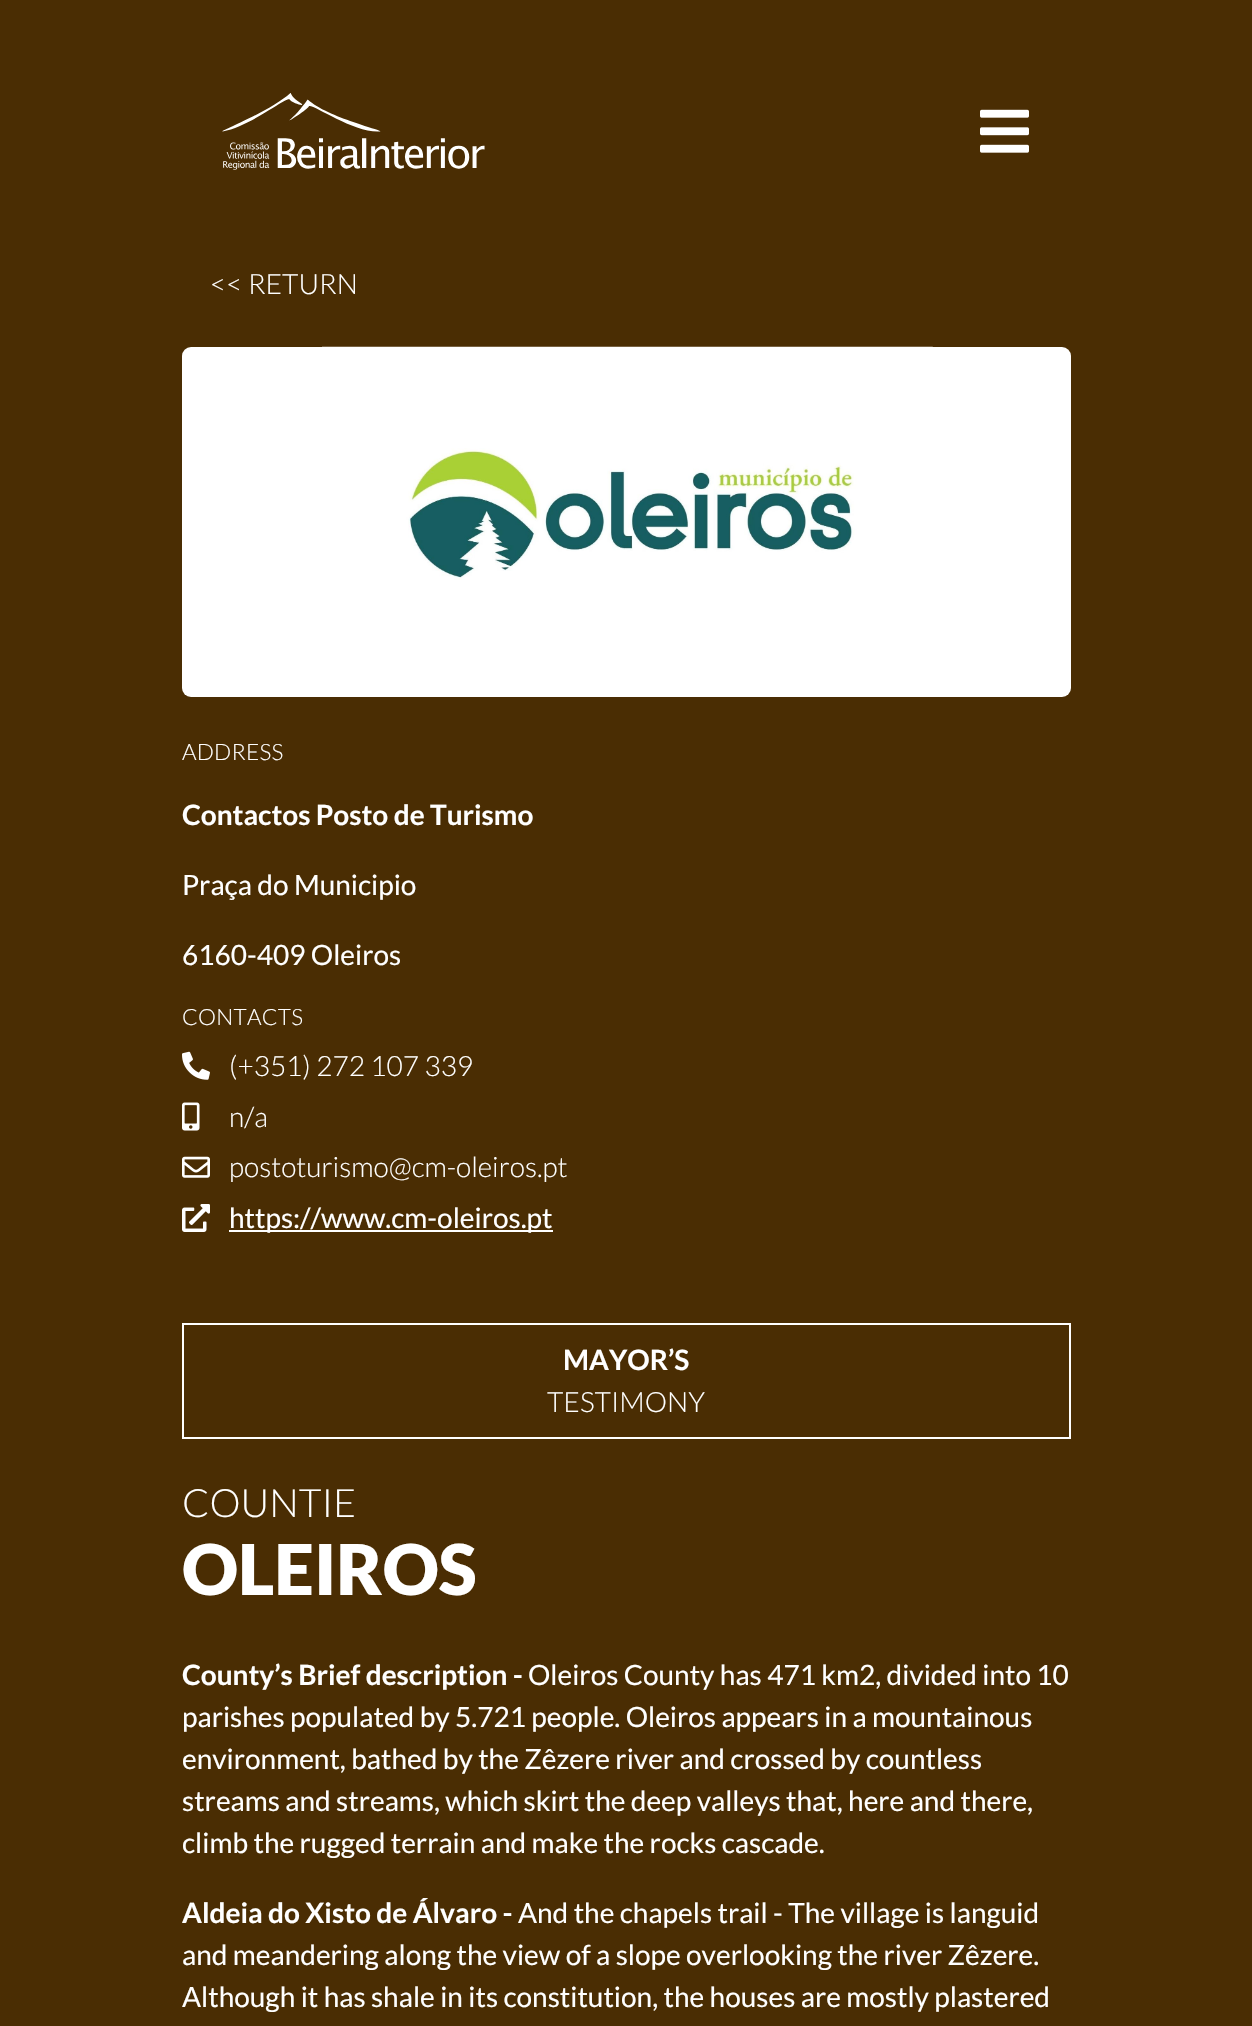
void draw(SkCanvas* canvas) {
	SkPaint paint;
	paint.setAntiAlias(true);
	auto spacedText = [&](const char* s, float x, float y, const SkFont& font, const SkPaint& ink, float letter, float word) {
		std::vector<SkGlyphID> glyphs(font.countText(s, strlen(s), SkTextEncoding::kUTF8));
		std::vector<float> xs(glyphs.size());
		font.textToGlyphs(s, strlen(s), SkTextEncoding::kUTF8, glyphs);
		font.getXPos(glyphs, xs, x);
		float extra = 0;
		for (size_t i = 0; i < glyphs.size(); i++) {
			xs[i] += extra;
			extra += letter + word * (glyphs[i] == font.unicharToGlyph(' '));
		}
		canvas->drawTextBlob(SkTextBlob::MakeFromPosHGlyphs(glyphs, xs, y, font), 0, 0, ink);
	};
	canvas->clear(0xff4a2d03);
	canvas->drawImageRect(SkImages::DeferredFromEncodedData(SkData::MakeFromFileName("img1.png")), SkRect::MakeXYWH(222, 93, 263, 77), SkSamplingOptions());
	canvas->drawImageRect(SkImages::DeferredFromEncodedData(SkData::MakeFromFileName("img2.png")), SkRect::MakeXYWH(980, 109, 49, 44), SkSamplingOptions());
	SkFont f1(fontMgr->matchFamilyStyle("Lato", SkFontStyle(300, SkFontStyle::kNormal_Width, SkFontStyle::kUpright_Slant)), 28);
	f1.setSubpixel(true);
	paint.setColor(0xffffffff);
	canvas->drawString("<< RETURN", 210, 294, f1, paint);
	canvas->drawRoundRect(SkRect::MakeXYWH(182, 347, 889, 350), 9, 9, paint);
	canvas->drawImageRect(SkImages::DeferredFromEncodedData(SkData::MakeFromFileName("img3.png")), SkRect::MakeXYWH(322, 346, 611, 234), SkSamplingOptions());
	SkFont f2(fontMgr->matchFamilyStyle("Lato", SkFontStyle(300, SkFontStyle::kNormal_Width, SkFontStyle::kUpright_Slant)), 22.5);
	f2.setSubpixel(true);
	spacedText("ADDRESS", 182, 760, f2, paint, 0.25, 0);
	SkFont f3(fontMgr->matchFamilyStyle("Lato", SkFontStyle::Bold()), 28);
	f3.setSubpixel(true);
	canvas->drawString("Contactos Posto de Turismo", 182, 825, f3, paint);
	SkFont f4(fontMgr->matchFamilyStyle("Lato", SkFontStyle::Normal()), 28);
	f4.setSubpixel(true);
	canvas->drawString("Praça do Municipio", 182, 895, f4, paint);
	canvas->drawString("6160-409 Oleiros", 182, 965, f4, paint);
	spacedText("CONTACTS", 182, 1025, f2, paint, 0.25, 0);
	canvas->drawImageRect(SkImages::DeferredFromEncodedData(SkData::MakeFromFileName("img4.png")), SkRect::MakeXYWH(182, 1051, 28, 29), SkSamplingOptions());
	canvas->drawString("(+351) 272 107 339", 229, 1076, f1, paint);
	canvas->drawImageRect(SkImages::DeferredFromEncodedData(SkData::MakeFromFileName("img5.png")), SkRect::MakeXYWH(182, 1102, 18, 29), SkSamplingOptions());
	canvas->drawString("n/a", 229, 1127, f1, paint);
	canvas->drawImageRect(SkImages::DeferredFromEncodedData(SkData::MakeFromFileName("img6.png")), SkRect::MakeXYWH(182, 1156, 28, 22), SkSamplingOptions());
	canvas->drawString("postoturismo@cm-oleiros.pt", 229, 1177, f1, paint);
	canvas->drawImageRect(SkImages::DeferredFromEncodedData(SkData::MakeFromFileName("img7.png")), SkRect::MakeXYWH(182, 1204, 28, 28), SkSamplingOptions());
	canvas->drawRect(SkRect::MakeXYWH(229, 1230, 324, 2), paint);
	canvas->drawString("https://www.cm-oleiros.pt", 229, 1228, f4, paint);
	paint.setStroke(true);
	paint.setStrokeWidth(2);
	canvas->drawRect(SkRect::MakeXYWH(183, 1324, 887, 114), paint);
	paint.setStroke(false);
	canvas->drawString("MAYOR’S", 563, 1370, f3, paint);
	canvas->drawString("TESTIMONY", 547, 1412, f1, paint);
	SkFont f5(fontMgr->matchFamilyStyle("Lato", SkFontStyle(300, SkFontStyle::kNormal_Width, SkFontStyle::kUpright_Slant)), 39);
	f5.setSubpixel(true);
	canvas->drawString("COUNTIE", 182, 1517, f5, paint);
	SkFont f6(fontMgr->matchFamilyStyle("Lato", SkFontStyle(900, SkFontStyle::kNormal_Width, SkFontStyle::kUpright_Slant)), 70);
	f6.setSubpixel(true);
	canvas->drawString("OLEIROS", 182, 1595, f6, paint);
	canvas->drawString("County’s Brief description -", 182, 1685, f3, paint);
	canvas->drawString("Oleiros County has 471 km2, divided into 10", 528, 1685, f4, paint);
	canvas->drawString("parishes populated by 5.721 people. Oleiros appears in a mountainous", 182, 1727, f4, paint);
	canvas->drawString("environment, bathed by the Zêzere river and crossed by countless", 182, 1769, f4, paint);
	canvas->drawString("streams and streams, which skirt the deep valleys that, here and there,", 182, 1811, f4, paint);
	canvas->drawString("climb the rugged terrain and make the rocks cascade.", 182, 1853, f4, paint);
	canvas->drawString("Aldeia do Xisto de Álvaro -", 182, 1923, f3, paint);
	canvas->drawString("And the chapels trail - The village is languid", 518, 1923, f4, paint);
	canvas->drawString("and meandering along the view of a slope overlooking the river Zêzere.", 182, 1965, f4, paint);
	canvas->drawString("Although it has shale in its constitution, the houses are mostly plastered", 182, 2007, f4, paint);
}
